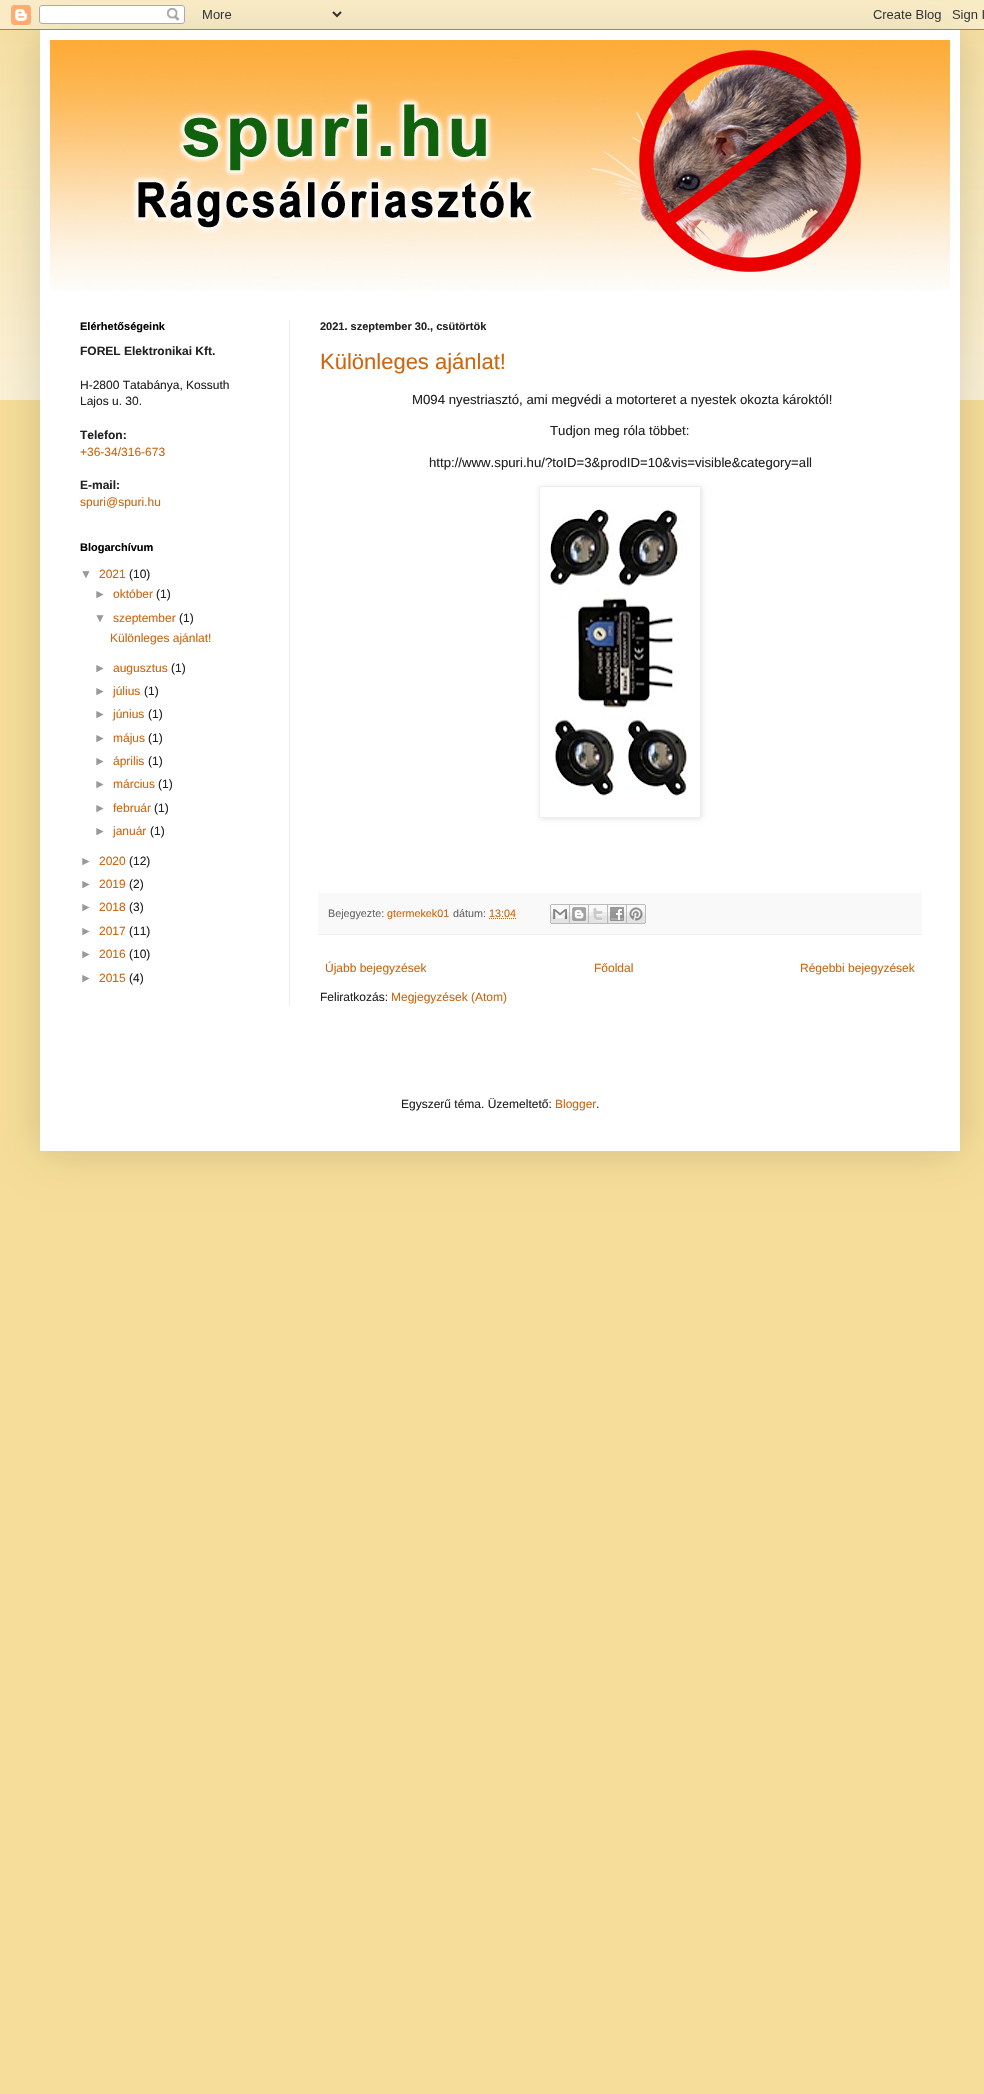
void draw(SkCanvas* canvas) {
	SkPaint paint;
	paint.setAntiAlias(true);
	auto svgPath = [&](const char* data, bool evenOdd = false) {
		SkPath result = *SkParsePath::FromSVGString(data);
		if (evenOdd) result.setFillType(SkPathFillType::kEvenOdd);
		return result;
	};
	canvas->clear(0xfff6dd99);
	canvas->drawImageRect(SkImages::DeferredFromEncodedData(SkData::MakeFromFileName("img1.png")), SkRect::MakeXYWH(0, 0, 984, 400), SkSamplingOptions());
	paint.setColor(0x26000000);
	paint.setMaskFilter(SkMaskFilter::MakeBlur(kNormal_SkBlurStyle, 20));
	canvas->drawRect(SkRect::MakeXYWH(40, 30, 920, 1121), paint);
	paint.setMaskFilter(nullptr);
	canvas->drawImageRect(SkImages::DeferredFromEncodedData(SkData::MakeFromFileName("img2.png")), SkRect::MakeXYWH(0, 0, 984, 30), SkSamplingOptions());
	paint.setColor(0xffffffff);
	canvas->drawRect(SkRect::MakeXYWH(40, 30, 920, 1121), paint);
	canvas->drawImageRect(SkImages::DeferredFromEncodedData(SkData::MakeFromFileName("img3.png")), SkRect::MakeXYWH(50, 40, 900, 250), SkSamplingOptions());
	paint.setColor(0xffeeeeee);
	canvas->drawRect(SkRect::MakeXYWH(289, 320, 1, 686), paint);
	SkFont f1(fontMgr->matchFamilyStyle("Liberation Sans", SkFontStyle::Bold()), 11);
	f1.setSubpixel(true);
	paint.setColor(0xff000000);
	canvas->drawString("Elérhetőségeink", 80, 330, f1, paint);
	SkFont f2(fontMgr->matchFamilyStyle("Liberation Sans", SkFontStyle::Bold()), 12);
	f2.setSubpixel(true);
	paint.setColor(0xff222222);
	canvas->drawString("FOREL Elektronikai Kft.", 80, 355, f2, paint);
	SkFont f3(fontMgr->matchFamilyStyle("Liberation Sans", SkFontStyle::Normal()), 12);
	f3.setSubpixel(true);
	canvas->drawString("H-2800 Tatabánya, Kossuth", 80, 389, f3, paint);
	canvas->drawString("Lajos u. 30.", 80, 405, f3, paint);
	canvas->drawString("Telefon:", 80, 439, f2, paint);
	paint.setColor(0xffcc6611);
	canvas->drawString("+36-34/316-673", 80, 456, f3, paint);
	paint.setColor(0xff222222);
	canvas->drawString("E-mail:", 80, 489, f2, paint);
	paint.setColor(0xffcc6611);
	canvas->drawString("spuri@spuri.hu", 80, 506, f3, paint);
	paint.setColor(0xff000000);
	canvas->drawString("Blogarchívum", 80, 551, f1, paint);
	paint.setColor(0xff999999);
	canvas->drawString("▼", 80, 578, f3, paint);
	paint.setColor(0xffcc6611);
	canvas->drawString("2021", 99, 578, f3, paint);
	paint.setColor(0xff222222);
	canvas->drawString("(10)", 129, 578, f3, paint);
	paint.setColor(0xff999999);
	canvas->drawString("►", 94, 598, f3, paint);
	paint.setColor(0xffcc6611);
	canvas->drawString("október", 113, 598, f3, paint);
	paint.setColor(0xff222222);
	canvas->drawString("(1)", 156, 598, f3, paint);
	paint.setColor(0xff999999);
	canvas->drawString("▼", 94, 622, f3, paint);
	paint.setColor(0xffcc6611);
	canvas->drawString("szeptember", 113, 622, f3, paint);
	paint.setColor(0xff222222);
	canvas->drawString("(1)", 179, 622, f3, paint);
	paint.setColor(0xffcc6611);
	canvas->drawString("Különleges ajánlat!", 110, 642, f3, paint);
	paint.setColor(0xff999999);
	canvas->drawString("►", 94, 672, f3, paint);
	paint.setColor(0xffcc6611);
	canvas->drawString("augusztus", 113, 672, f3, paint);
	paint.setColor(0xff222222);
	canvas->drawString("(1)", 171, 672, f3, paint);
	paint.setColor(0xff999999);
	canvas->drawString("►", 94, 695, f3, paint);
	paint.setColor(0xffcc6611);
	canvas->drawString("július", 113, 695, f3, paint);
	paint.setColor(0xff222222);
	canvas->drawString("(1)", 144, 695, f3, paint);
	paint.setColor(0xff999999);
	canvas->drawString("►", 94, 718, f3, paint);
	paint.setColor(0xffcc6611);
	canvas->drawString("június", 113, 718, f3, paint);
	paint.setColor(0xff222222);
	canvas->drawString("(1)", 148, 718, f3, paint);
	paint.setColor(0xff999999);
	canvas->drawString("►", 94, 742, f3, paint);
	paint.setColor(0xffcc6611);
	canvas->drawString("május", 113, 742, f3, paint);
	paint.setColor(0xff222222);
	canvas->drawString("(1)", 148, 742, f3, paint);
	paint.setColor(0xff999999);
	canvas->drawString("►", 94, 765, f3, paint);
	paint.setColor(0xffcc6611);
	canvas->drawString("április", 113, 765, f3, paint);
	paint.setColor(0xff222222);
	canvas->drawString("(1)", 148, 765, f3, paint);
	paint.setColor(0xff999999);
	canvas->drawString("►", 94, 788, f3, paint);
	paint.setColor(0xffcc6611);
	canvas->drawString("március", 113, 788, f3, paint);
	paint.setColor(0xff222222);
	canvas->drawString("(1)", 158, 788, f3, paint);
	paint.setColor(0xff999999);
	canvas->drawString("►", 94, 812, f3, paint);
	paint.setColor(0xffcc6611);
	canvas->drawString("február", 113, 812, f3, paint);
	paint.setColor(0xff222222);
	canvas->drawString("(1)", 154, 812, f3, paint);
	paint.setColor(0xff999999);
	canvas->drawString("►", 94, 835, f3, paint);
	paint.setColor(0xffcc6611);
	canvas->drawString("január", 113, 835, f3, paint);
	paint.setColor(0xff222222);
	canvas->drawString("(1)", 150, 835, f3, paint);
	paint.setColor(0xff999999);
	canvas->drawString("►", 80, 865, f3, paint);
	paint.setColor(0xffcc6611);
	canvas->drawString("2020", 99, 865, f3, paint);
	paint.setColor(0xff222222);
	canvas->drawString("(12)", 129, 865, f3, paint);
	paint.setColor(0xff999999);
	canvas->drawString("►", 80, 888, f3, paint);
	paint.setColor(0xffcc6611);
	canvas->drawString("2019", 99, 888, f3, paint);
	paint.setColor(0xff222222);
	canvas->drawString("(2)", 129, 888, f3, paint);
	paint.setColor(0xff999999);
	canvas->drawString("►", 80, 911, f3, paint);
	paint.setColor(0xffcc6611);
	canvas->drawString("2018", 99, 911, f3, paint);
	paint.setColor(0xff222222);
	canvas->drawString("(3)", 129, 911, f3, paint);
	paint.setColor(0xff999999);
	canvas->drawString("►", 80, 935, f3, paint);
	paint.setColor(0xffcc6611);
	canvas->drawString("2017", 99, 935, f3, paint);
	paint.setColor(0xff222222);
	canvas->drawString("(11)", 129, 935, f3, paint);
	paint.setColor(0xff999999);
	canvas->drawString("►", 80, 958, f3, paint);
	paint.setColor(0xffcc6611);
	canvas->drawString("2016", 99, 958, f3, paint);
	paint.setColor(0xff222222);
	canvas->drawString("(10)", 129, 958, f3, paint);
	paint.setColor(0xff999999);
	canvas->drawString("►", 80, 982, f3, paint);
	paint.setColor(0xffcc6611);
	canvas->drawString("2015", 99, 982, f3, paint);
	paint.setColor(0xff222222);
	canvas->drawString("(4)", 129, 982, f3, paint);
	canvas->drawString("2021. szeptember 30., csütörtök", 320, 330, f1, paint);
	SkFont f4(fontMgr->matchFamilyStyle("Liberation Sans", SkFontStyle::Normal()), 22);
	f4.setSubpixel(true);
	paint.setColor(0xffcc6611);
	canvas->drawString("Különleges ajánlat!", 320, 369, f4, paint);
	SkFont f5(fontMgr->matchFamilyStyle("Liberation Sans", SkFontStyle::Normal()), 13.2);
	f5.setSubpixel(true);
	paint.setColor(0xff222222);
	canvas->drawString("M094 nyestriasztó, ami megvédi a motorteret a nyestek okozta károktól!", 412, 404, f5, paint);
	canvas->drawString("Tudjon meg róla többet:", 550, 435, f5, paint);
	canvas->drawString("http://www.spuri.hu/?toID=3&prodID=10&vis=visible&category=all", 429, 467, f5, paint);
	canvas->save();
	canvas->clipPath(svgPath("M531 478H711V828H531ZM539 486H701V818H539Z", true), true);
	paint.setColor(0x1a000000);
	paint.setMaskFilter(SkMaskFilter::MakeBlur(kNormal_SkBlurStyle, 2.5));
	canvas->drawRect(SkRect::MakeXYWH(540, 487, 162, 332), paint);
	paint.setMaskFilter(nullptr);
	canvas->restore();
	paint.setStroke(true);
	paint.setStrokeWidth(1);
	paint.setColor(0xffeeeeee);
	canvas->drawRect(SkRect::MakeXYWH(539.5, 486.5, 161, 331), paint);
	canvas->drawImageRect(SkImages::DeferredFromEncodedData(SkData::MakeFromFileName("img4.png")), SkRect::MakeXYWH(550, 509, 138, 287), SkSamplingOptions());
	paint.setStroke(false);
	paint.setColor(0xfff9f9f9);
	canvas->drawRect(SkRect::MakeXYWH(318, 893, 604, 41), paint);
	paint.setColor(0xffeeeeee);
	canvas->drawRect(SkRect::MakeXYWH(318, 934, 604, 1), paint);
	SkFont f6(fontMgr->matchFamilyStyle("Liberation Sans", SkFontStyle::Normal()), 10.75);
	f6.setSubpixel(true);
	paint.setColor(0xff666666);
	canvas->drawString("Bejegyezte:", 328, 917, f6, paint);
	paint.setColor(0xffcc6611);
	canvas->drawString("gtermekek01", 387, 917, f6, paint);
	paint.setColor(0xff666666);
	canvas->drawString("dátum:", 453, 917, f6, paint);
	paint.setColor(0xffcc6611);
	canvas->drawString("13:04", 489, 917, f6, paint);
	paint.setStroke(true);
	paint.setPathEffect(SkDashPathEffect::Make({{1, 1}}, 0));
	canvas->drawPath(svgPath("M489 918.5H516"), paint);
	paint.setPathEffect(nullptr);
	canvas->drawImageRect(SkImages::DeferredFromEncodedData(SkData::MakeFromFileName("img5.png")), SkRect::MakeXYWH(550, 904, 20, 20), SkSamplingOptions());
	canvas->drawImageRect(SkImages::DeferredFromEncodedData(SkData::MakeFromFileName("img6.png")), SkRect::MakeXYWH(570, 904, 19, 20), SkSamplingOptions());
	canvas->drawImageRect(SkImages::DeferredFromEncodedData(SkData::MakeFromFileName("img7.png")), SkRect::MakeXYWH(589, 904, 19, 20), SkSamplingOptions());
	canvas->drawImageRect(SkImages::DeferredFromEncodedData(SkData::MakeFromFileName("img8.png")), SkRect::MakeXYWH(608, 904, 19, 20), SkSamplingOptions());
	canvas->drawImageRect(SkImages::DeferredFromEncodedData(SkData::MakeFromFileName("img9.png")), SkRect::MakeXYWH(627, 904, 19, 20), SkSamplingOptions());
	paint.setStroke(false);
	canvas->drawString("Újabb bejegyzések", 325, 972, f3, paint);
	canvas->drawString("Főoldal", 594, 972, f3, paint);
	canvas->drawString("Régebbi bejegyzések", 800, 972, f3, paint);
	paint.setColor(0xff222222);
	canvas->drawString("Feliratkozás:", 320, 1001, f3, paint);
	paint.setColor(0xffcc6611);
	canvas->drawString("Megjegyzések (Atom)", 391, 1001, f3, paint);
	paint.setColor(0xff222222);
	canvas->drawString("Egyszerű téma. Üzemeltető:", 401, 1108, f3, paint);
	paint.setColor(0xffcc6611);
	canvas->drawString("Blogger", 555, 1108, f3, paint);
	paint.setColor(0xff222222);
	canvas->drawString(".", 596, 1108, f3, paint);
}
